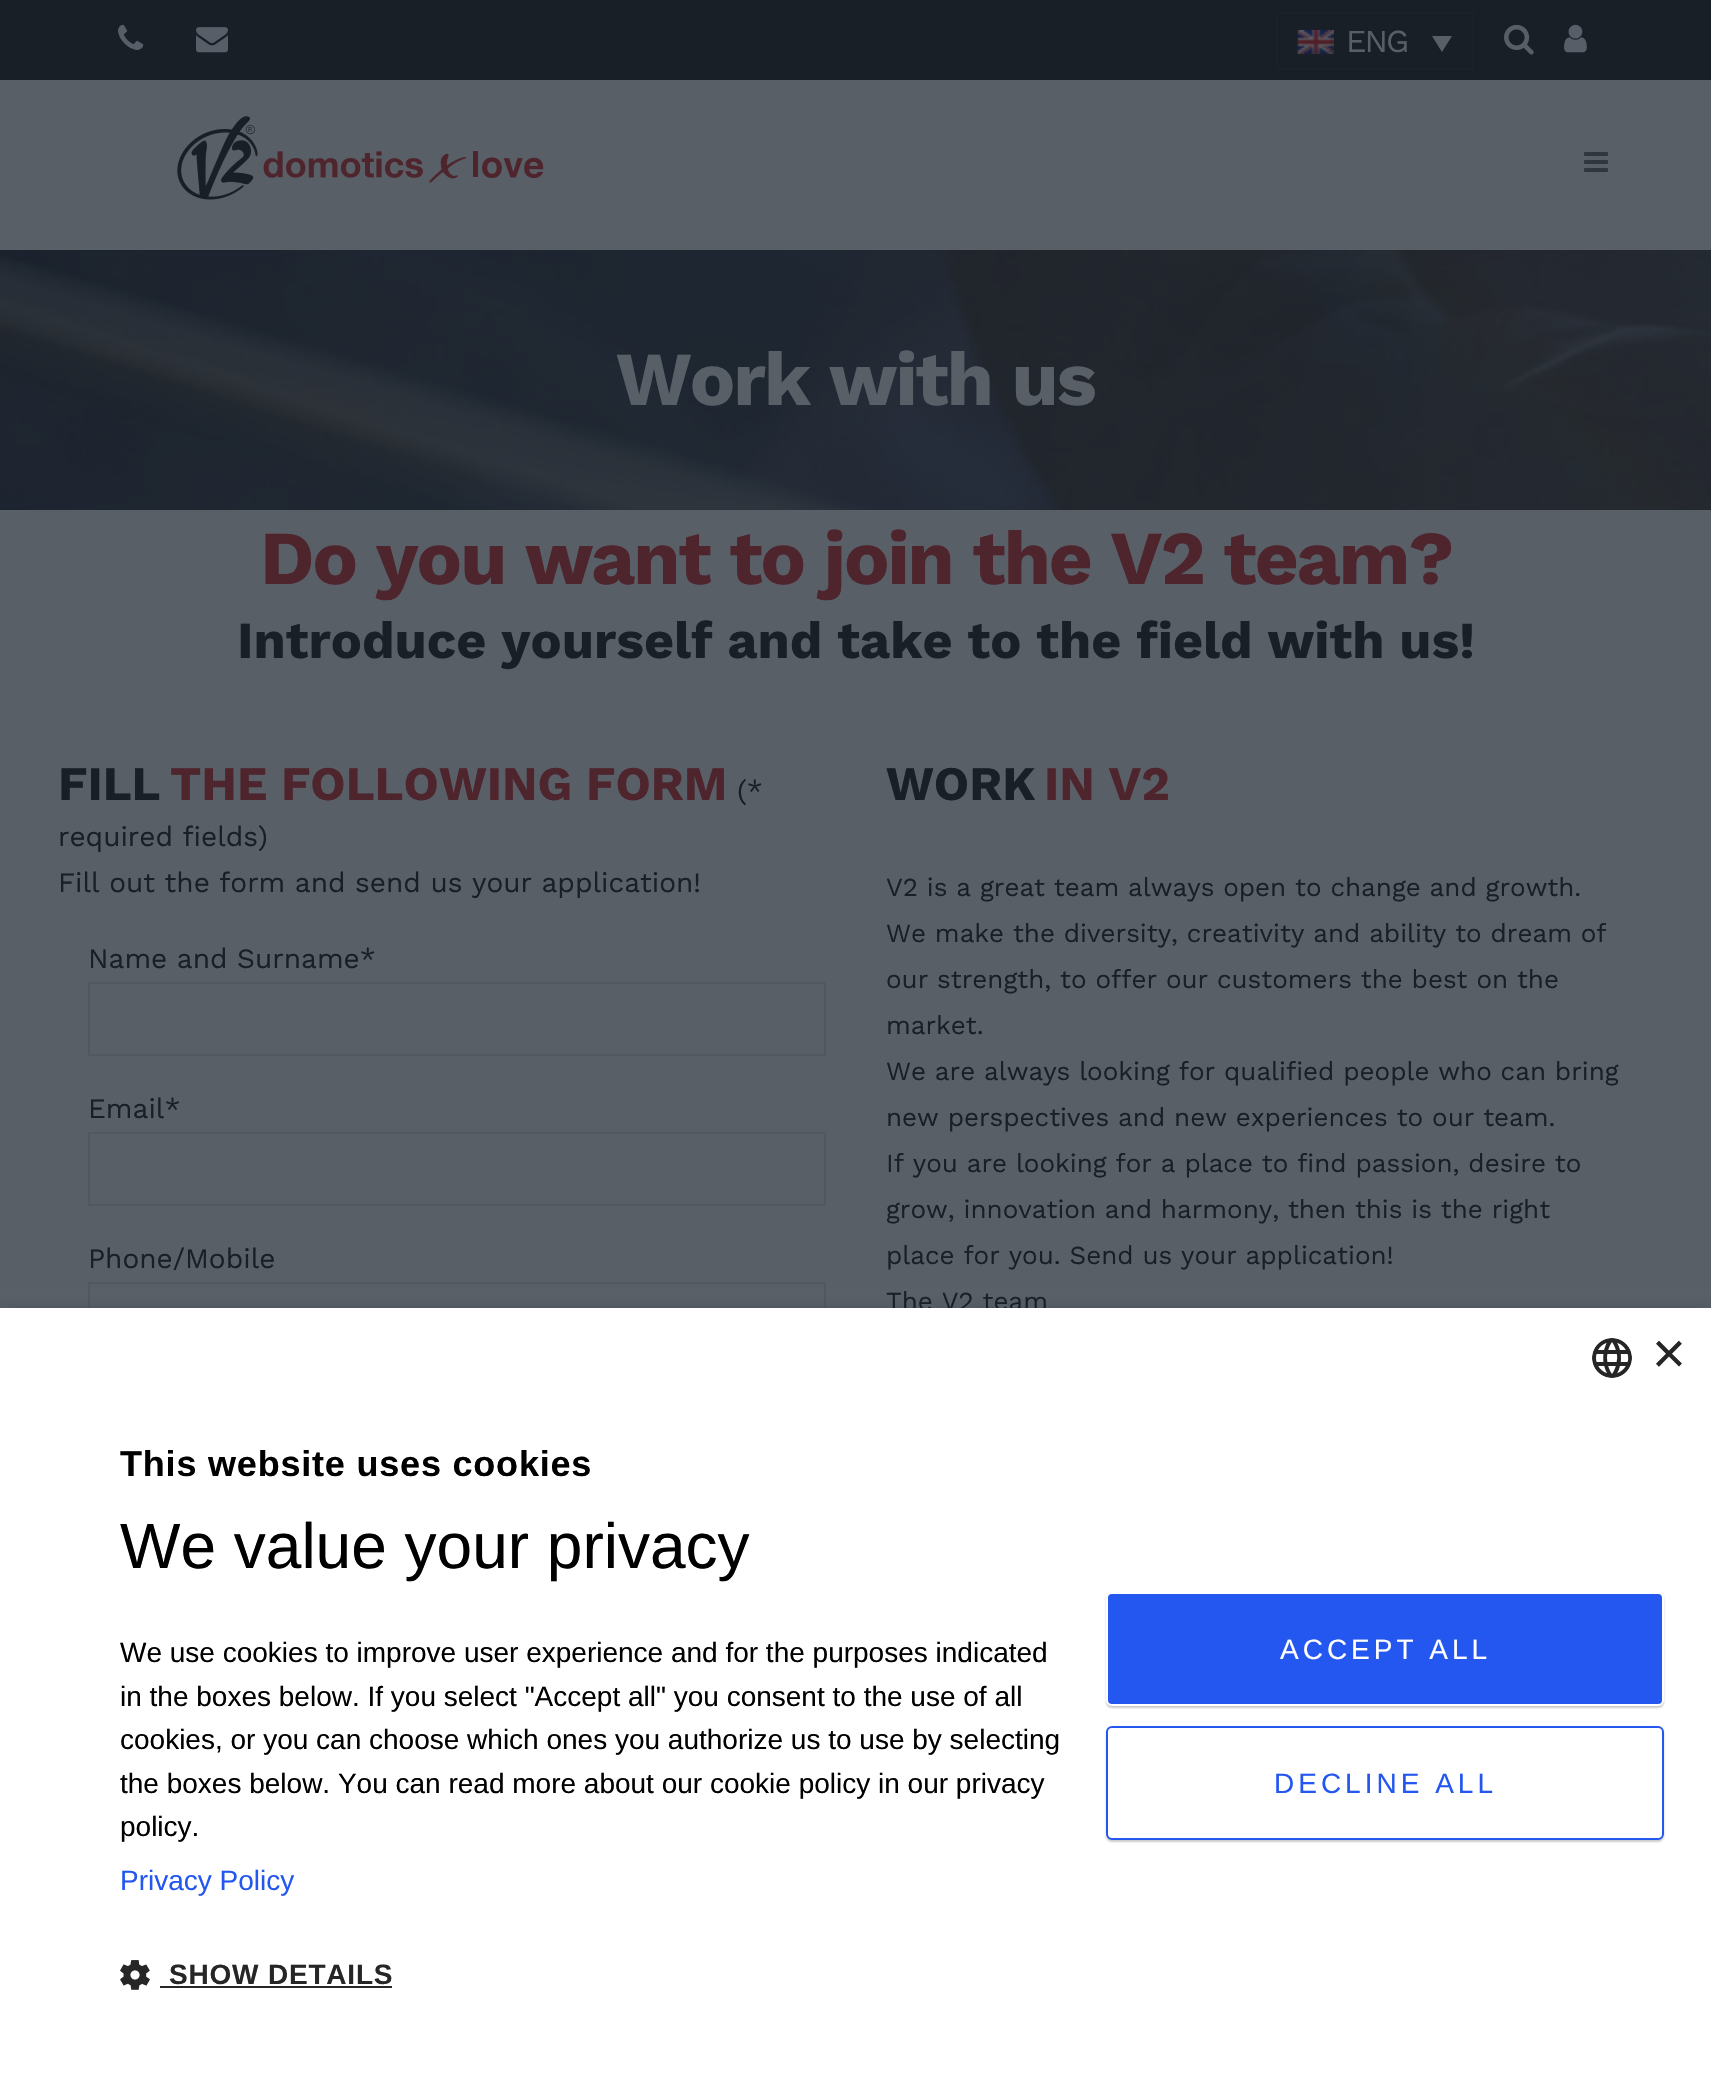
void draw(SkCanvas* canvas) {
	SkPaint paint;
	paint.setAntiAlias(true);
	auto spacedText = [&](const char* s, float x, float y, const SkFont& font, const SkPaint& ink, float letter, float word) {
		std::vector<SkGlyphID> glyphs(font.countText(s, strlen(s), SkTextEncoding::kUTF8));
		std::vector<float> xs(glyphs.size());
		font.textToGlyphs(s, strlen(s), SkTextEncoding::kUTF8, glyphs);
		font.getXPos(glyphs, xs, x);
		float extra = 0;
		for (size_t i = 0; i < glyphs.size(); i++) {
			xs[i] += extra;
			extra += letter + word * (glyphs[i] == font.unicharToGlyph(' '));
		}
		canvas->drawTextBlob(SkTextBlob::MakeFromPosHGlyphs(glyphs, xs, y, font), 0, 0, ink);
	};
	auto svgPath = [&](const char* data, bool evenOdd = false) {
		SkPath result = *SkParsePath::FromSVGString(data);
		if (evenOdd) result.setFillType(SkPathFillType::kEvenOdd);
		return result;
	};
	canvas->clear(0xff595f67);
	paint.setColor(0xff191f27);
	canvas->drawRect(SkRect::MakeXYWH(0, 0, 1711, 80), paint);
	canvas->drawImageRect(SkImages::DeferredFromEncodedData(SkData::MakeFromFileName("img1.png")), SkRect::MakeXYWH(118, 24, 26, 26), SkSamplingOptions());
	canvas->drawImageRect(SkImages::DeferredFromEncodedData(SkData::MakeFromFileName("img2.png")), SkRect::MakeXYWH(196, 27, 32, 26), SkSamplingOptions());
	paint.setStroke(true);
	paint.setStrokeWidth(2);
	paint.setColor(0xff1b212a);
	canvas->drawRect(SkRect::MakeXYWH(1277, 13, 196, 56), paint);
	canvas->drawImageRect(SkImages::DeferredFromEncodedData(SkData::MakeFromFileName("img3.png")), SkRect::MakeXYWH(1297, 30, 37, 24), SkSamplingOptions());
	SkFont f1(fontMgr->matchFamilyStyle("Work Sans", SkFontStyle::Normal()), 32);
	f1.setSubpixel(true);
	paint.setStroke(false);
	paint.setColor(0xff595f67);
	spacedText("ENG", 1346, 52, f1, paint, -2, 0);
	canvas->drawPath(svgPath("M1432 36H1452L1442 52Z"), paint);
	canvas->drawImageRect(SkImages::DeferredFromEncodedData(SkData::MakeFromFileName("img4.png")), SkRect::MakeXYWH(1504, 24, 30, 31), SkSamplingOptions());
	canvas->drawImageRect(SkImages::DeferredFromEncodedData(SkData::MakeFromFileName("img5.png")), SkRect::MakeXYWH(1564, 24, 23, 29), SkSamplingOptions());
	canvas->drawImageRect(SkImages::DeferredFromEncodedData(SkData::MakeFromFileName("img6.png")), SkRect::MakeXYWH(177, 116, 367, 84), SkSamplingOptions());
	canvas->drawImageRect(SkImages::DeferredFromEncodedData(SkData::MakeFromFileName("img7.png")), SkRect::MakeXYWH(1584, 152, 24, 20), SkSamplingOptions());
	canvas->drawImageRect(SkImages::DeferredFromEncodedData(SkData::MakeFromFileName("img8.png")), SkRect::MakeXYWH(0, 250, 1711, 260), SkSamplingOptions());
	SkFont f2(fontMgr->matchFamilyStyle("Work Sans", SkFontStyle::Bold()), 76);
	f2.setSubpixel(true);
	spacedText("Work with us", 616, 405, f2, paint, -2, 0);
	paint.setColor(0xff4e242d);
	spacedText("Do you want to join the V2 team?", 260, 584, f2, paint, -2, 0);
	SkFont f3(fontMgr->matchFamilyStyle("Work Sans", SkFontStyle::Bold()), 52);
	f3.setSubpixel(true);
	paint.setColor(0xff191f27);
	canvas->drawString("Introduce yourself and take to the field with us!", 237, 658, f3, paint);
	SkFont f4(fontMgr->matchFamilyStyle("Work Sans", SkFontStyle::Bold()), 48);
	f4.setSubpixel(true);
	canvas->drawString("FILL", 58, 800, f4, paint);
	paint.setColor(0xff4e242d);
	canvas->drawString("THE FOLLOWING FORM", 170, 800, f4, paint);
	SkFont f5(fontMgr->matchFamilyStyle("Work Sans", SkFontStyle::Normal()), 28);
	f5.setSubpixel(true);
	paint.setColor(0xff191f27);
	canvas->drawString("(*", 737, 800, f5, paint);
	canvas->drawString("required fields)", 58, 846, f5, paint);
	canvas->drawString("Fill out the form and send us your application!", 58, 892, f5, paint);
	canvas->drawString("Name and Surname*", 88, 968, f5, paint);
	paint.setStroke(true);
	paint.setColor(0xff525860);
	canvas->drawRect(SkRect::MakeXYWH(89, 983, 736, 72), paint);
	paint.setStroke(false);
	paint.setColor(0xff191f27);
	canvas->drawString("Email*", 88, 1118, f5, paint);
	paint.setStroke(true);
	paint.setColor(0xff525860);
	canvas->drawRect(SkRect::MakeXYWH(89, 1133, 736, 72), paint);
	paint.setStroke(false);
	paint.setColor(0xff191f27);
	canvas->drawString("Phone/Mobile", 88, 1268, f5, paint);
	paint.setStroke(true);
	paint.setColor(0xff525860);
	canvas->drawRect(SkRect::MakeXYWH(89, 1283, 736, 72), paint);
	paint.setStroke(false);
	paint.setColor(0xff191f27);
	canvas->drawString("WORK", 886, 800, f4, paint);
	paint.setColor(0xff4e242d);
	canvas->drawString("IN V2", 1044, 800, f4, paint);
	SkFont f6(fontMgr->matchFamilyStyle("Work Sans", SkFontStyle::Normal()), 26);
	f6.setSubpixel(true);
	paint.setColor(0xff191f27);
	canvas->drawString("V2 is a great team always open to change and growth.", 886, 896, f6, paint);
	canvas->drawString("We make the diversity, creativity and ability to dream of", 886, 942, f6, paint);
	canvas->drawString("our strength, to offer our customers the best on the", 886, 988, f6, paint);
	canvas->drawString("market.", 886, 1034, f6, paint);
	canvas->drawString("We are always looking for qualified people who can bring", 886, 1080, f6, paint);
	canvas->drawString("new perspectives and new experiences to our team.", 886, 1126, f6, paint);
	canvas->drawString("If you are looking for a place to find passion, desire to", 886, 1172, f6, paint);
	canvas->drawString("grow, innovation and harmony, then this is the right", 886, 1218, f6, paint);
	canvas->drawString("place for you. Send us your application!", 886, 1264, f6, paint);
	canvas->drawString("The V2 team", 886, 1310, f6, paint);
	paint.setColor(0x59191f27);
	paint.setMaskFilter(SkMaskFilter::MakeBlur(kNormal_SkBlurStyle, 8));
	canvas->drawRect(SkRect::MakeXYWH(2, 1312, 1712, 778), paint);
	paint.setMaskFilter(nullptr);
	paint.setColor(0xffffffff);
	canvas->drawRect(SkRect::MakeXYWH(0, 1308, 1711, 777), paint);
	canvas->drawImageRect(SkImages::DeferredFromEncodedData(SkData::MakeFromFileName("img9.png")), SkRect::MakeXYWH(1592, 1338, 40, 40), SkSamplingOptions());
	SkFont f7(fontMgr->matchFamilyStyle("Liberation Sans", SkFontStyle::Normal()), 58);
	f7.setSubpixel(true);
	paint.setColor(0xff262626);
	canvas->drawString("×", 1652, 1373, f7, paint);
	SkFont f8(fontMgr->matchFamilyStyle("Liberation Sans", SkFontStyle::Bold()), 36);
	f8.setSubpixel(true);
	paint.setColor(0xff000000);
	spacedText("This website uses cookies", 120, 1476, f8, paint, 0.8, 0);
	SkFont f9(fontMgr->matchFamilyStyle("Liberation Sans", SkFontStyle::Normal()), 64);
	f9.setSubpixel(true);
	canvas->drawString("We value your privacy", 120, 1568, f9, paint);
	SkFont f10(fontMgr->matchFamilyStyle("Liberation Sans", SkFontStyle::Normal()), 28);
	f10.setSubpixel(true);
	canvas->drawString("We use cookies to improve user experience and for the purposes indicated", 120, 1662, f10, paint);
	canvas->drawString("in the boxes below. If you select \"Accept all\" you consent to the use of all", 120, 1706, f10, paint);
	canvas->drawString("cookies, or you can choose which ones you authorize us to use by selecting", 120, 1749, f10, paint);
	canvas->drawString("the boxes below. You can read more about our cookie policy in our privacy", 120, 1793, f10, paint);
	canvas->drawString("policy.", 120, 1836, f10, paint);
	paint.setColor(0xff2457f0);
	canvas->drawString("Privacy Policy", 120, 1890, f10, paint);
	canvas->drawImageRect(SkImages::DeferredFromEncodedData(SkData::MakeFromFileName("img10.png")), SkRect::MakeXYWH(120, 1960, 30, 30), SkSamplingOptions());
	SkFont f11(fontMgr->matchFamilyStyle("Liberation Sans", SkFontStyle::Bold()), 28);
	f11.setSubpixel(true);
	paint.setColor(0xff262626);
	spacedText("SHOW DETAILS", 169, 1984, f11, paint, 0.8, 0);
	canvas->drawRect(SkRect::MakeXYWH(160, 1986, 232, 2), paint);
	paint.setColor(0x33000000);
	paint.setMaskFilter(SkMaskFilter::MakeBlur(kNormal_SkBlurStyle, 1));
	canvas->drawRoundRect(SkRect::MakeXYWH(1106, 1594, 558, 114), 6, 6, paint);
	paint.setMaskFilter(nullptr);
	paint.setColor(0xff2457f0);
	canvas->drawRoundRect(SkRect::MakeXYWH(1107, 1593, 556, 112), 5, 5, paint);
	paint.setStroke(true);
	paint.setColor(0xffffffff);
	canvas->drawRoundRect(SkRect::MakeXYWH(1107, 1593, 556, 112), 5, 5, paint);
	paint.setStroke(false);
	spacedText("ACCEPT ALL", 1280, 1659, f10, paint, 4, 0);
	paint.setColor(0x33000000);
	paint.setMaskFilter(SkMaskFilter::MakeBlur(kNormal_SkBlurStyle, 1));
	canvas->drawRoundRect(SkRect::MakeXYWH(1106, 1728, 558, 114), 6, 6, paint);
	paint.setMaskFilter(nullptr);
	paint.setColor(0xffffffff);
	canvas->drawRoundRect(SkRect::MakeXYWH(1107, 1727, 556, 112), 5, 5, paint);
	paint.setStroke(true);
	paint.setColor(0xff2457f0);
	canvas->drawRoundRect(SkRect::MakeXYWH(1107, 1727, 556, 112), 5, 5, paint);
	paint.setStroke(false);
	spacedText("DECLINE ALL", 1274, 1793, f10, paint, 4, 0);
}
